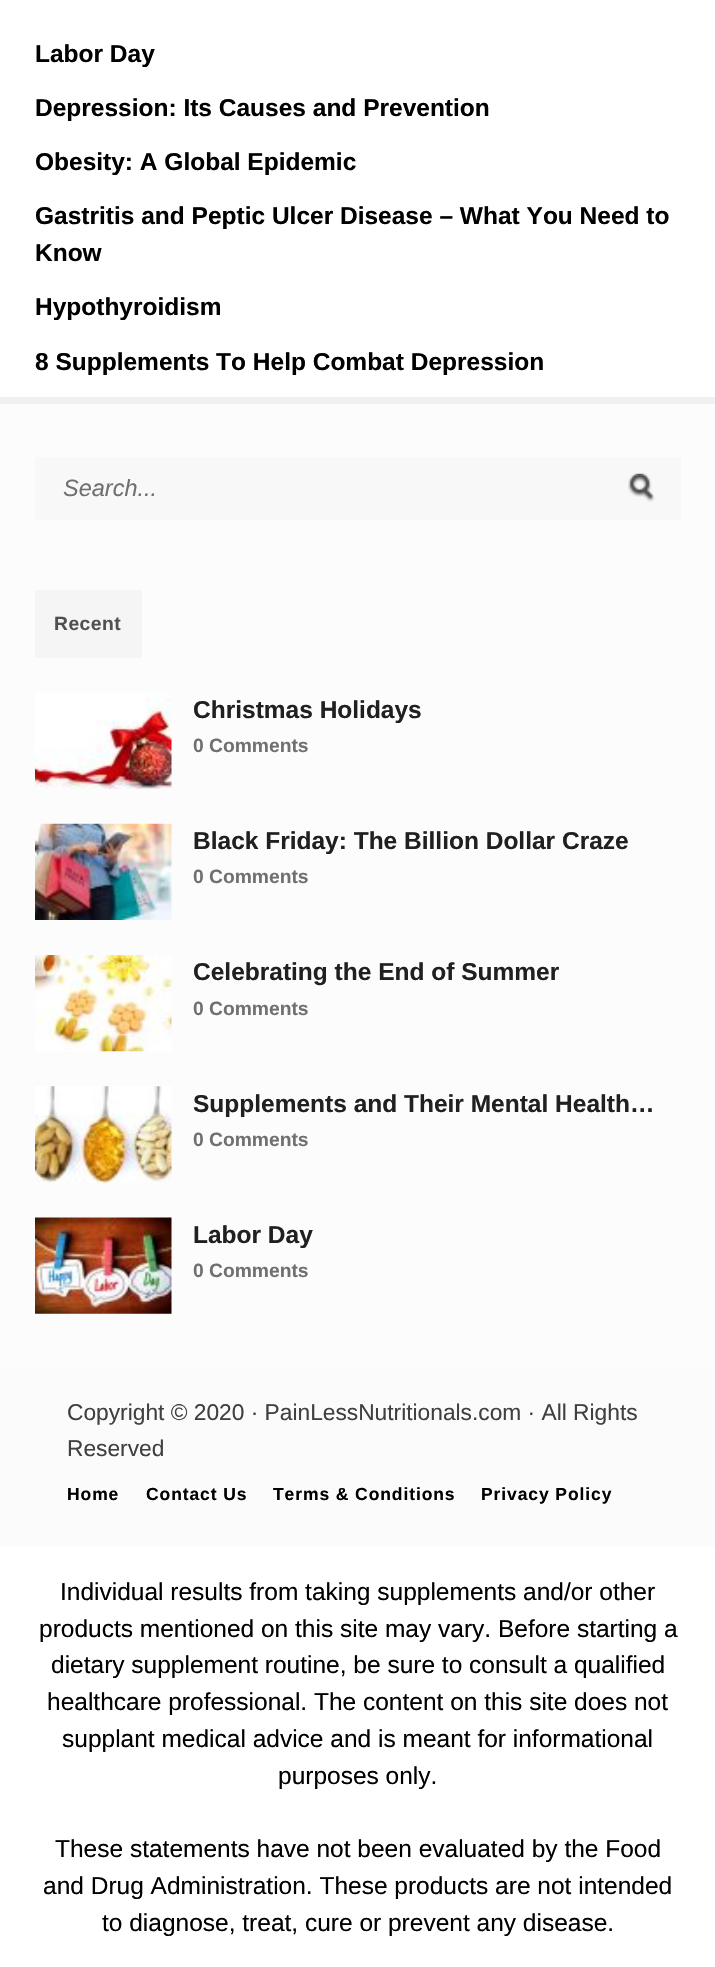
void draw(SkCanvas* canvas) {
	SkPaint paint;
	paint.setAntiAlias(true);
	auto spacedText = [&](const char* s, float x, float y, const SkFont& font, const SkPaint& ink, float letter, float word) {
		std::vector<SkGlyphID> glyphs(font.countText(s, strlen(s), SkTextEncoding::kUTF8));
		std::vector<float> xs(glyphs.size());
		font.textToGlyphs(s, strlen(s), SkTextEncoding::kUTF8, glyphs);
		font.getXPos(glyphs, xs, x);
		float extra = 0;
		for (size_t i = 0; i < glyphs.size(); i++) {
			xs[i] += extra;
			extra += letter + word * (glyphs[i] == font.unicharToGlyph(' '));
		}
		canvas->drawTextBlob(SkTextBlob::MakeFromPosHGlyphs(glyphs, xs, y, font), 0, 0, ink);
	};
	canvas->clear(0xffffffff);
	SkFont f1(fontMgr->matchFamilyStyle("Liberation Sans", SkFontStyle::Bold()), 24.5);
	f1.setSubpixel(true);
	paint.setColor(0xff000000);
	canvas->drawString("Labor Day", 35, 62, f1, paint);
	canvas->drawString("Depression: Its Causes and Prevention", 35, 116, f1, paint);
	canvas->drawString("Obesity: A Global Epidemic", 35, 170, f1, paint);
	canvas->drawString("Gastritis and Peptic Ulcer Disease – What You Need to", 35, 224, f1, paint);
	canvas->drawString("Know", 35, 261, f1, paint);
	canvas->drawString("Hypothyroidism", 35, 315, f1, paint);
	canvas->drawString("8 Supplements To Help Combat Depression", 35, 370, f1, paint);
	paint.setColor(0xfffcfcfc);
	canvas->drawRect(SkRect::MakeXYWH(0, 404, 715, 963), paint);
	paint.setColor(0xfff0f0f0);
	canvas->drawRect(SkRect::MakeXYWH(0, 397, 715, 7), paint);
	paint.setColor(0xfff8f8f8);
	canvas->drawRect(SkRect::MakeXYWH(35, 457, 646, 63), paint);
	SkFont f2(fontMgr->matchFamilyStyle("Liberation Sans", SkFontStyle::Italic()), 23.5);
	f2.setSubpixel(true);
	paint.setColor(0xff707070);
	canvas->drawString("Search...", 63, 496, f2, paint);
	canvas->drawImageRect(SkImages::DeferredFromEncodedData(SkData::MakeFromFileName("img1.png")), SkRect::MakeXYWH(628, 473, 27, 29), SkSamplingOptions());
	paint.setColor(0xfff5f5f5);
	canvas->drawRect(SkRect::MakeXYWH(35, 590, 107, 68), paint);
	SkFont f3(fontMgr->matchFamilyStyle("Liberation Sans", SkFontStyle::Bold()), 19.25);
	f3.setSubpixel(true);
	paint.setColor(0xff505050);
	spacedText("Recent", 54, 630, f3, paint, 0.5, 0);
	canvas->drawImageRect(SkImages::DeferredFromEncodedData(SkData::MakeFromFileName("img2.png")), SkRect::MakeXYWH(35, 692, 137, 97), SkSamplingOptions());
	paint.setColor(0xff202020);
	canvas->drawString("Christmas Holidays", 193, 718, f1, paint);
	paint.setColor(0xff707070);
	canvas->drawString("0 Comments", 193, 752, f3, paint);
	canvas->drawImageRect(SkImages::DeferredFromEncodedData(SkData::MakeFromFileName("img3.png")), SkRect::MakeXYWH(35, 823, 137, 97), SkSamplingOptions());
	paint.setColor(0xff202020);
	canvas->drawString("Black Friday: The Billion Dollar Craze", 193, 849, f1, paint);
	paint.setColor(0xff707070);
	canvas->drawString("0 Comments", 193, 883, f3, paint);
	canvas->drawImageRect(SkImages::DeferredFromEncodedData(SkData::MakeFromFileName("img4.png")), SkRect::MakeXYWH(35, 955, 137, 97), SkSamplingOptions());
	paint.setColor(0xff202020);
	canvas->drawString("Celebrating the End of Summer", 193, 980, f1, paint);
	paint.setColor(0xff707070);
	canvas->drawString("0 Comments", 193, 1015, f3, paint);
	canvas->drawImageRect(SkImages::DeferredFromEncodedData(SkData::MakeFromFileName("img5.png")), SkRect::MakeXYWH(35, 1086, 137, 97), SkSamplingOptions());
	paint.setColor(0xff202020);
	canvas->drawString("Supplements and Their Mental Health…", 193, 1112, f1, paint);
	paint.setColor(0xff707070);
	canvas->drawString("0 Comments", 193, 1146, f3, paint);
	canvas->drawImageRect(SkImages::DeferredFromEncodedData(SkData::MakeFromFileName("img6.png")), SkRect::MakeXYWH(35, 1217, 137, 97), SkSamplingOptions());
	paint.setColor(0xff202020);
	canvas->drawString("Labor Day", 193, 1243, f1, paint);
	paint.setColor(0xff707070);
	canvas->drawString("0 Comments", 193, 1277, f3, paint);
	paint.setColor(0xfffbfbfb);
	canvas->drawRect(SkRect::MakeXYWH(0, 1367, 715, 180), paint);
	SkFont f4(fontMgr->matchFamilyStyle("Liberation Sans", SkFontStyle::Normal()), 22.75);
	f4.setSubpixel(true);
	paint.setColor(0xff404040);
	canvas->drawString("Copyright © 2020 · PainLessNutritionals.com · All Rights", 67, 1420, f4, paint);
	canvas->drawString("Reserved", 67, 1456, f4, paint);
	SkFont f5(fontMgr->matchFamilyStyle("Liberation Sans", SkFontStyle::Bold()), 17.5);
	f5.setSubpixel(true);
	paint.setColor(0xff000000);
	spacedText("Home", 67, 1500, f5, paint, 0.9, 0);
	spacedText("Contact Us", 146, 1500, f5, paint, 0.9, 0);
	spacedText("Terms & Conditions", 273, 1500, f5, paint, 0.9, 0);
	spacedText("Privacy Policy", 481, 1500, f5, paint, 0.9, 0);
	SkFont f6(fontMgr->matchFamilyStyle("Liberation Sans", SkFontStyle::Normal()), 24.5);
	f6.setSubpixel(true);
	canvas->drawString("Individual results from taking supplements and/or other", 60, 1600, f6, paint);
	canvas->drawString("products mentioned on this site may vary. Before starting a", 39, 1637, f6, paint);
	canvas->drawString("dietary supplement routine, be sure to consult a qualified", 51, 1673, f6, paint);
	canvas->drawString("healthcare professional. The content on this site does not", 47, 1710, f6, paint);
	canvas->drawString("supplant medical advice and is meant for informational", 62, 1747, f6, paint);
	canvas->drawString("purposes only.", 278, 1784, f6, paint);
	canvas->drawString("These statements have not been evaluated by the Food", 55, 1857, f6, paint);
	canvas->drawString("and Drug Administration. These products are not intended", 43, 1894, f6, paint);
	canvas->drawString("to diagnose, treat, cure or prevent any disease.", 102, 1931, f6, paint);
}
